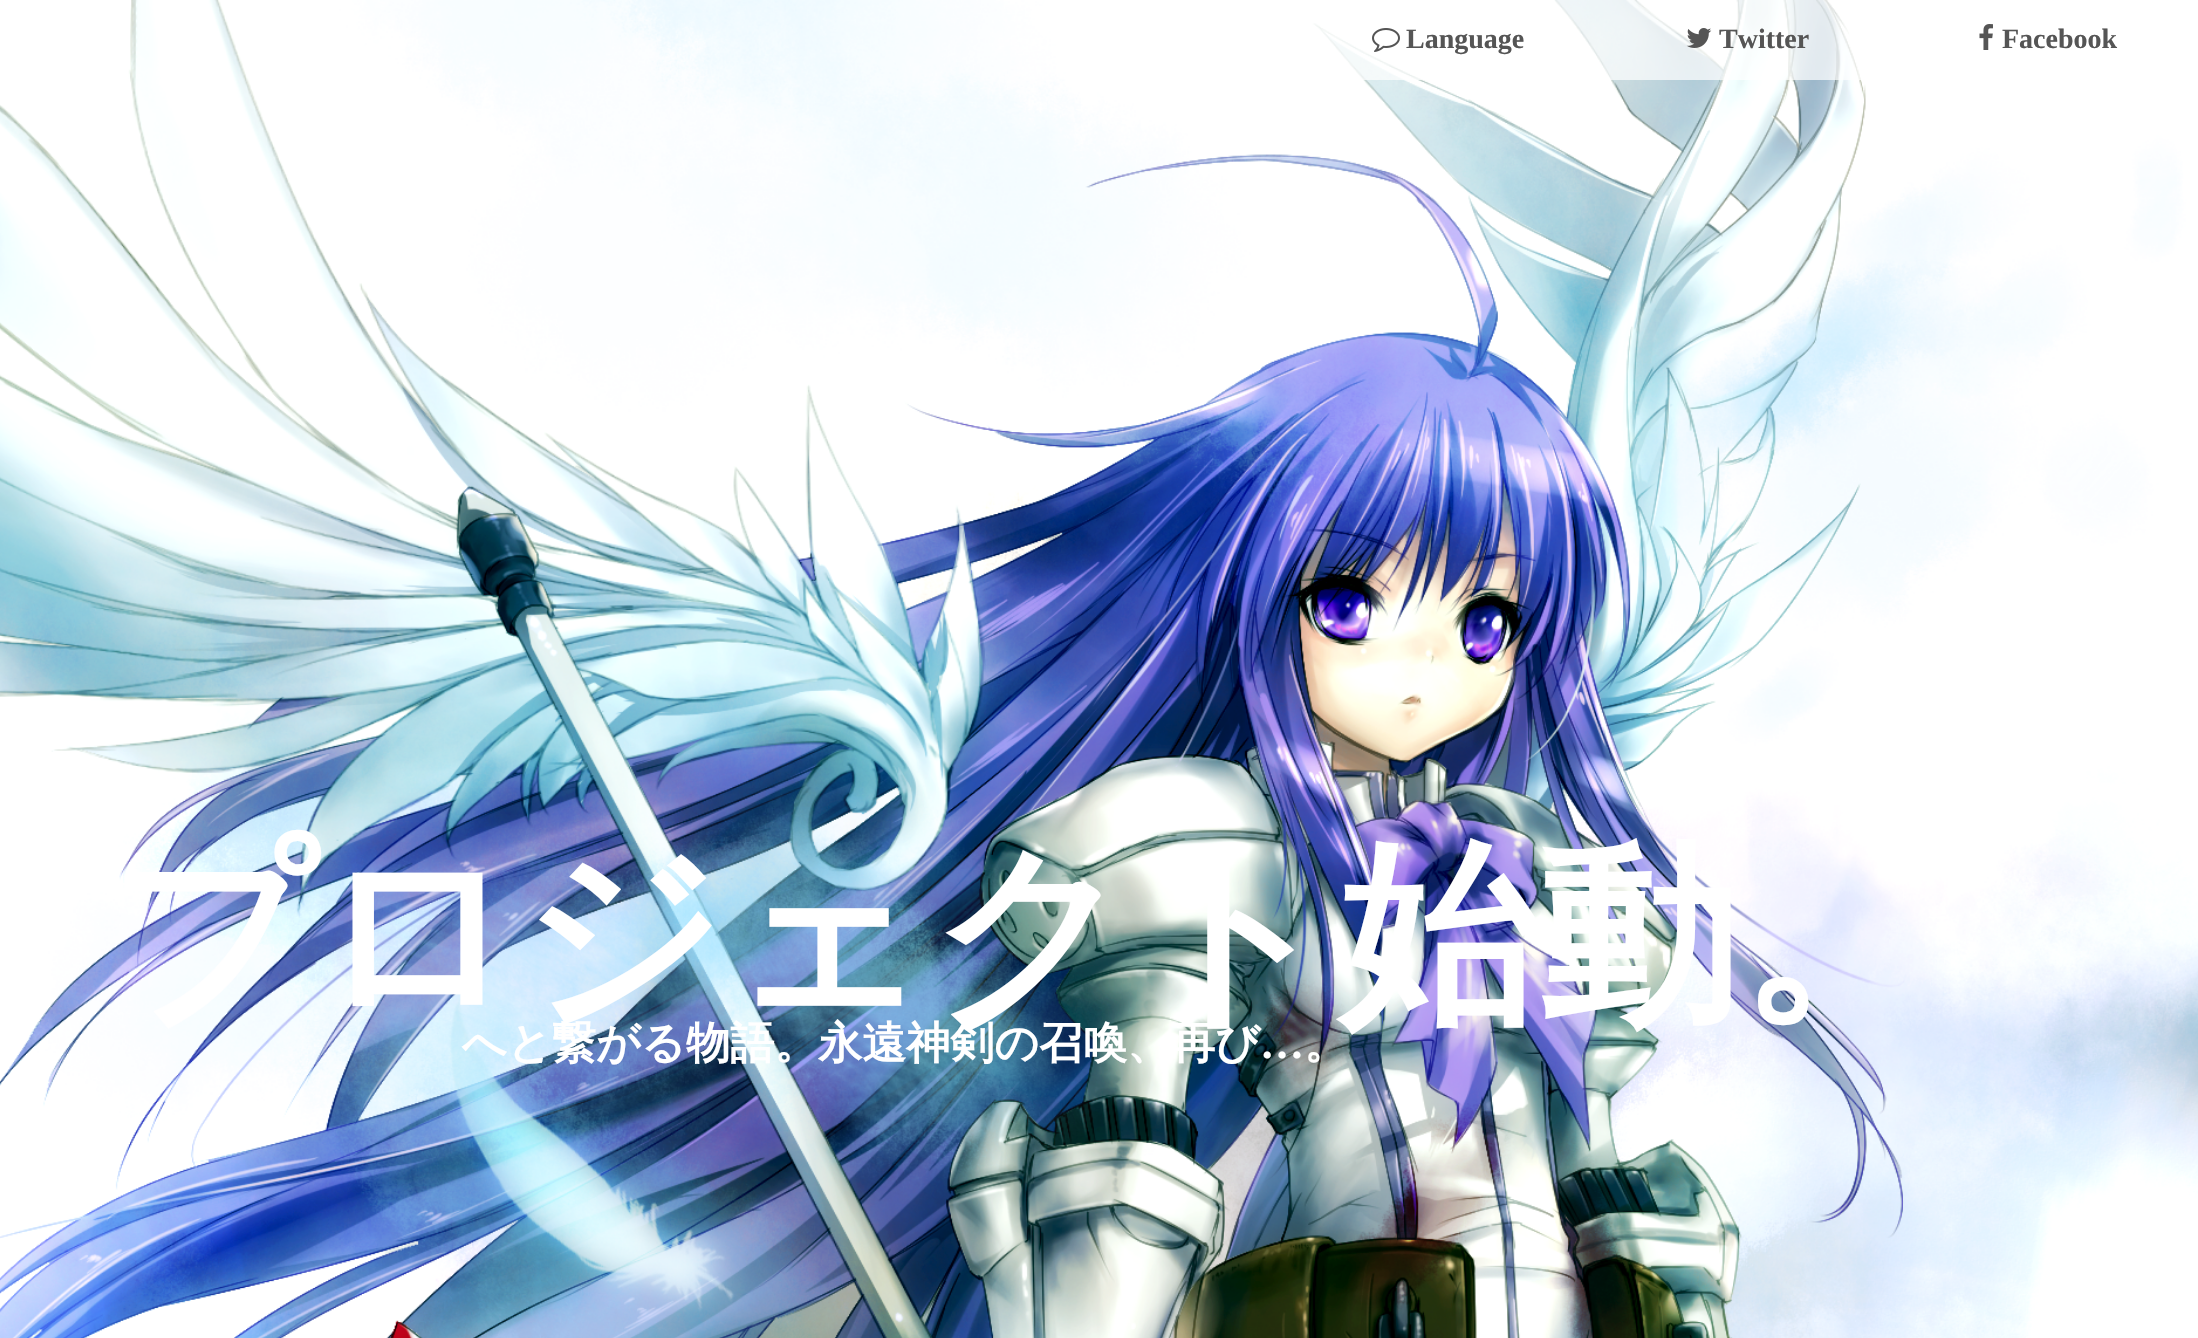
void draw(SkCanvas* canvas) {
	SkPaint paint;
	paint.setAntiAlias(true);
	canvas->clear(0xffffffff);
	canvas->drawImageRect(SkImages::DeferredFromEncodedData(SkData::MakeFromFileName("img1.png")), SkRect::MakeXYWH(0, 0, 2198, 1338), SkSamplingOptions());
	paint.setColor(0xb3ffffff);
	canvas->drawRect(SkRect::MakeXYWH(1312, 0, 286, 80), paint);
	canvas->drawImageRect(SkImages::DeferredFromEncodedData(SkData::MakeFromFileName("img2.png")), SkRect::MakeXYWH(1372, 28, 28, 24), SkSamplingOptions());
	SkFont f1(fontMgr->matchFamilyStyle("Liberation Serif", SkFontStyle::Bold()), 28);
	f1.setSubpixel(true);
	paint.setColor(0xff555555);
	canvas->drawString("Language", 1406, 48, f1, paint);
	paint.setColor(0xb3ffffff);
	canvas->drawRect(SkRect::MakeXYWH(1598, 0, 263, 80), paint);
	canvas->drawImageRect(SkImages::DeferredFromEncodedData(SkData::MakeFromFileName("img3.png")), SkRect::MakeXYWH(1686, 28, 26, 20), SkSamplingOptions());
	paint.setColor(0xff555555);
	canvas->drawString("Twitter", 1719, 48, f1, paint);
	canvas->drawImageRect(SkImages::DeferredFromEncodedData(SkData::MakeFromFileName("img4.png")), SkRect::MakeXYWH(1979, 24, 14, 26), SkSamplingOptions());
	canvas->drawString("Facebook", 2002, 48, f1, paint);
	SkFont f2(fontMgr->matchFamilyStyle("WenQuanYi Zen Hei", SkFontStyle::Bold()), 200);
	f2.setSubpixel(true);
	paint.setColor(0xffffffff);
	canvas->drawString("プロジェクト始動。", 110, 1004, f2, paint);
	SkFont f3(fontMgr->matchFamilyStyle("WenQuanYi Zen Hei", SkFontStyle::Bold()), 44);
	f3.setSubpixel(true);
	canvas->drawString("へと繋がる物語。永遠神剣の召喚、再び", 462, 1058, f3, paint);
	SkFont f4(fontMgr->matchFamilyStyle("Liberation Serif", SkFontStyle::Bold()), 44);
	f4.setSubpixel(true);
	canvas->drawString("…", 1260, 1058, f4, paint);
	canvas->drawString("。", 1304, 1058, f3, paint);
}
